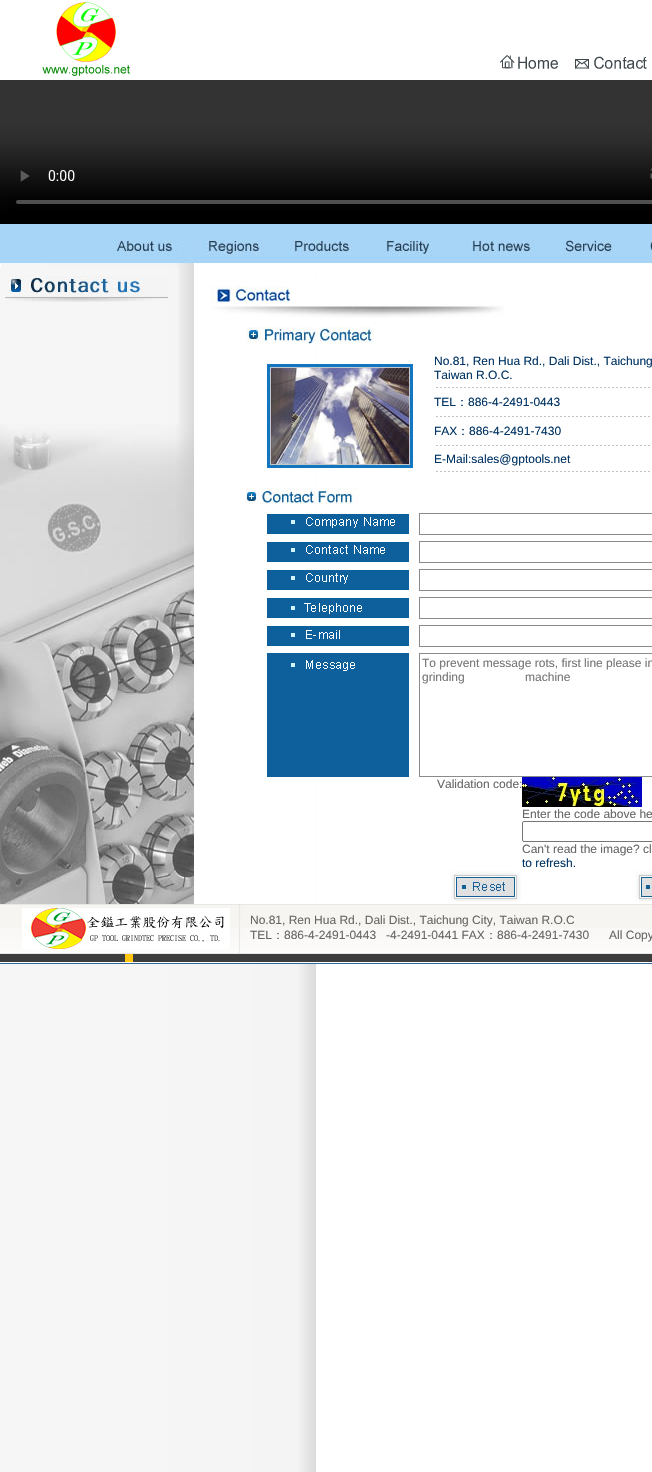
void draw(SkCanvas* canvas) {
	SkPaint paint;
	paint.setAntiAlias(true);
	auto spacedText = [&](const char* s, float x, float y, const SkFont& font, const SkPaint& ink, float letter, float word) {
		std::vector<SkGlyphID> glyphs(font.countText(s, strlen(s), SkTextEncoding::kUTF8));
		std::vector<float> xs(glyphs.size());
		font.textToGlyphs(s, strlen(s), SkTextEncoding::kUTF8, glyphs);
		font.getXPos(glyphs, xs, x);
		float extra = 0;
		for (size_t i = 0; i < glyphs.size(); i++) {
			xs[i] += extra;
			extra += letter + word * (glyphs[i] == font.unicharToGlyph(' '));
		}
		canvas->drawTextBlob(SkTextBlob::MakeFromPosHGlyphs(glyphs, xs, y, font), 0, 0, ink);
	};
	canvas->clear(0xffffffff);
	canvas->drawImageRect(SkImages::DeferredFromEncodedData(SkData::MakeFromFileName("img1.png")), SkRect::MakeXYWH(0, 224, 652, 1248), SkSamplingOptions());
	canvas->drawImageRect(SkImages::DeferredFromEncodedData(SkData::MakeFromFileName("img2.png")), SkRect::MakeXYWH(42, 2, 88, 74), SkSamplingOptions());
	canvas->drawImageRect(SkImages::DeferredFromEncodedData(SkData::MakeFromFileName("img3.png")), SkRect::MakeXYWH(500, 55, 58, 14), SkSamplingOptions());
	canvas->drawImageRect(SkImages::DeferredFromEncodedData(SkData::MakeFromFileName("img4.png")), SkRect::MakeXYWH(575, 56, 72, 13), SkSamplingOptions());
	canvas->drawImageRect(SkImages::DeferredFromEncodedData(SkData::MakeFromFileName("img5.png")), SkRect::MakeXYWH(0, 80, 652, 144), SkSamplingOptions());
	canvas->drawImageRect(SkImages::DeferredFromEncodedData(SkData::MakeFromFileName("img6.png")), SkRect::MakeXYWH(0, 256, 652, 12), SkSamplingOptions());
	canvas->drawImageRect(SkImages::DeferredFromEncodedData(SkData::MakeFromFileName("img7.png")), SkRect::MakeXYWH(114, 240, 64, 16), SkSamplingOptions());
	canvas->drawImageRect(SkImages::DeferredFromEncodedData(SkData::MakeFromFileName("img8.png")), SkRect::MakeXYWH(194, 240, 72, 24), SkSamplingOptions());
	canvas->drawImageRect(SkImages::DeferredFromEncodedData(SkData::MakeFromFileName("img9.png")), SkRect::MakeXYWH(290, 240, 64, 16), SkSamplingOptions());
	canvas->drawImageRect(SkImages::DeferredFromEncodedData(SkData::MakeFromFileName("img10.png")), SkRect::MakeXYWH(385, 240, 48, 16), SkSamplingOptions());
	canvas->drawImageRect(SkImages::DeferredFromEncodedData(SkData::MakeFromFileName("img11.png")), SkRect::MakeXYWH(470, 240, 64, 16), SkSamplingOptions());
	canvas->drawImageRect(SkImages::DeferredFromEncodedData(SkData::MakeFromFileName("img12.png")), SkRect::MakeXYWH(564, 240, 50, 16), SkSamplingOptions());
	canvas->drawImageRect(SkImages::DeferredFromEncodedData(SkData::MakeFromFileName("img13.png")), SkRect::MakeXYWH(650, 240, 2, 15), SkSamplingOptions());
	canvas->drawImageRect(SkImages::DeferredFromEncodedData(SkData::MakeFromFileName("img14.png")), SkRect::MakeXYWH(178, 268, 16, 156), SkSamplingOptions());
	canvas->drawImageRect(SkImages::DeferredFromEncodedData(SkData::MakeFromFileName("img15.png")), SkRect::MakeXYWH(0, 276, 168, 26), SkSamplingOptions());
	canvas->drawImageRect(SkImages::DeferredFromEncodedData(SkData::MakeFromFileName("img16.png")), SkRect::MakeXYWH(0, 424, 194, 480), SkSamplingOptions());
	paint.setColor(0xffffffff);
	canvas->drawRect(SkRect::MakeXYWH(194, 268, 122, 636), paint);
	canvas->drawImageRect(SkImages::DeferredFromEncodedData(SkData::MakeFromFileName("img17.png")), SkRect::MakeXYWH(211, 286, 293, 32), SkSamplingOptions());
	canvas->drawImageRect(SkImages::DeferredFromEncodedData(SkData::MakeFromFileName("img18.png")), SkRect::MakeXYWH(246, 327, 128, 17), SkSamplingOptions());
	canvas->drawImageRect(SkImages::DeferredFromEncodedData(SkData::MakeFromFileName("img19.png")), SkRect::MakeXYWH(267, 364, 146, 104), SkSamplingOptions());
	SkFont f1(fontMgr->matchFamilyStyle("Liberation Sans", SkFontStyle::Normal()), 12);
	f1.setSubpixel(true);
	paint.setColor(0xff003363);
	canvas->drawString("No.81, Ren Hua Rd., Dali Dist., Taichung", 434, 365, f1, paint);
	canvas->drawString("Taiwan R.O.C.", 434, 379, f1, paint);
	canvas->drawImageRect(SkImages::DeferredFromEncodedData(SkData::MakeFromFileName("img20.png")), SkRect::MakeXYWH(436, 387, 214, 1), SkSamplingOptions());
	canvas->drawString("TEL", 434, 406, f1, paint);
	SkFont f2(fontMgr->matchFamilyStyle("WenQuanYi Zen Hei", SkFontStyle(500, SkFontStyle::kNormal_Width, SkFontStyle::kUpright_Slant)), 12);
	f2.setSubpixel(true);
	canvas->drawString("：", 456, 406, f2, paint);
	canvas->drawString("886-4-2491-0443", 468, 406, f1, paint);
	canvas->drawImageRect(SkImages::DeferredFromEncodedData(SkData::MakeFromFileName("img20.png")), SkRect::MakeXYWH(436, 416, 214, 1), SkSamplingOptions());
	canvas->drawString("FAX", 434, 435, f1, paint);
	canvas->drawString("：", 457, 435, f2, paint);
	canvas->drawString("886-4-2491-7430", 469, 435, f1, paint);
	canvas->drawImageRect(SkImages::DeferredFromEncodedData(SkData::MakeFromFileName("img20.png")), SkRect::MakeXYWH(436, 445, 214, 1), SkSamplingOptions());
	canvas->drawString("E-Mail:sales@gptools.net", 434, 463, f1, paint);
	canvas->drawImageRect(SkImages::DeferredFromEncodedData(SkData::MakeFromFileName("img20.png")), SkRect::MakeXYWH(436, 471, 214, 1), SkSamplingOptions());
	canvas->drawImageRect(SkImages::DeferredFromEncodedData(SkData::MakeFromFileName("img21.png")), SkRect::MakeXYWH(246, 488, 112, 16), SkSamplingOptions());
	canvas->drawImageRect(SkImages::DeferredFromEncodedData(SkData::MakeFromFileName("img22.png")), SkRect::MakeXYWH(267, 514, 142, 20), SkSamplingOptions());
	paint.setStroke(true);
	paint.setStrokeWidth(1);
	paint.setColor(0xff8b8b8b);
	canvas->drawRect(SkRect::MakeXYWH(419.5, 513.5, 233, 21), paint);
	canvas->drawImageRect(SkImages::DeferredFromEncodedData(SkData::MakeFromFileName("img23.png")), SkRect::MakeXYWH(267, 542, 142, 20), SkSamplingOptions());
	canvas->drawRect(SkRect::MakeXYWH(419.5, 541.5, 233, 21), paint);
	canvas->drawImageRect(SkImages::DeferredFromEncodedData(SkData::MakeFromFileName("img24.png")), SkRect::MakeXYWH(267, 570, 142, 20), SkSamplingOptions());
	canvas->drawRect(SkRect::MakeXYWH(419.5, 569.5, 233, 21), paint);
	canvas->drawImageRect(SkImages::DeferredFromEncodedData(SkData::MakeFromFileName("img25.png")), SkRect::MakeXYWH(267, 598, 142, 20), SkSamplingOptions());
	canvas->drawRect(SkRect::MakeXYWH(419.5, 597.5, 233, 21), paint);
	canvas->drawImageRect(SkImages::DeferredFromEncodedData(SkData::MakeFromFileName("img26.png")), SkRect::MakeXYWH(267, 626, 142, 20), SkSamplingOptions());
	canvas->drawRect(SkRect::MakeXYWH(419.5, 625.5, 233, 21), paint);
	paint.setStroke(false);
	paint.setColor(0xff0e609c);
	canvas->drawRect(SkRect::MakeXYWH(267, 653, 142, 124), paint);
	canvas->drawImageRect(SkImages::DeferredFromEncodedData(SkData::MakeFromFileName("img27.png")), SkRect::MakeXYWH(291, 660, 64, 11), SkSamplingOptions());
	paint.setStroke(true);
	paint.setColor(0xff8b8b8b);
	canvas->drawRect(SkRect::MakeXYWH(419.5, 653.5, 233, 123), paint);
	paint.setStroke(false);
	paint.setColor(0xff757575);
	canvas->drawString("To prevent message rots, first line please in", 422, 667, f1, paint);
	spacedText("grinding machine", 422, 681, f1, paint, 0, 57);
	paint.setColor(0xff666666);
	canvas->drawString("Validation code:", 437, 788, f1, paint);
	canvas->drawImageRect(SkImages::DeferredFromEncodedData(SkData::MakeFromFileName("img28.png")), SkRect::MakeXYWH(522, 777, 120, 30), SkSamplingOptions());
	canvas->drawString("Enter the code above he", 522, 818, f1, paint);
	paint.setStroke(true);
	paint.setColor(0xff767676);
	canvas->drawRoundRect(SkRect::MakeXYWH(522.5, 821.5, 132, 20), 1.5, 1.5, paint);
	paint.setStroke(false);
	paint.setColor(0xff666666);
	canvas->drawString("Can't read the image? cl", 522, 853, f1, paint);
	paint.setColor(0xff003363);
	canvas->drawString("to refresh.", 522, 867, f1, paint);
	canvas->drawImageRect(SkImages::DeferredFromEncodedData(SkData::MakeFromFileName("img29.png")), SkRect::MakeXYWH(450, 870, 72, 32), SkSamplingOptions());
	canvas->drawImageRect(SkImages::DeferredFromEncodedData(SkData::MakeFromFileName("img30.png")), SkRect::MakeXYWH(635, 870, 17, 32), SkSamplingOptions());
	canvas->drawImageRect(SkImages::DeferredFromEncodedData(SkData::MakeFromFileName("img31.png")), SkRect::MakeXYWH(0, 904, 652, 60), SkSamplingOptions());
	paint.setColor(0xfff7f6f2);
	canvas->drawRect(SkRect::MakeXYWH(0, 927, 652, 1), paint);
	canvas->drawImageRect(SkImages::DeferredFromEncodedData(SkData::MakeFromFileName("img32.png")), SkRect::MakeXYWH(22, 908, 208, 41), SkSamplingOptions());
	canvas->drawImageRect(SkImages::DeferredFromEncodedData(SkData::MakeFromFileName("img33.png")), SkRect::MakeXYWH(237, 904, 6, 49), SkSamplingOptions());
	paint.setColor(0xff666666);
	canvas->drawString("No.81, Ren Hua Rd., Dali Dist., Taichung City, Taiwan R.O.C", 250, 924, f1, paint);
	canvas->drawString("TEL", 250, 939, f1, paint);
	canvas->drawString("：", 272, 939, f2, paint);
	canvas->drawString("886-4-2491-0443", 284, 939, f1, paint);
	canvas->drawString("-4-2491-0441 FAX", 386, 939, f1, paint);
	canvas->drawString("：", 485, 939, f2, paint);
	canvas->drawString("886-4-2491-7430      All Copy", 497, 939, f1, paint);
	paint.setColor(0xffffc710);
	canvas->drawRect(SkRect::MakeXYWH(125, 954, 8, 8), paint);
}
